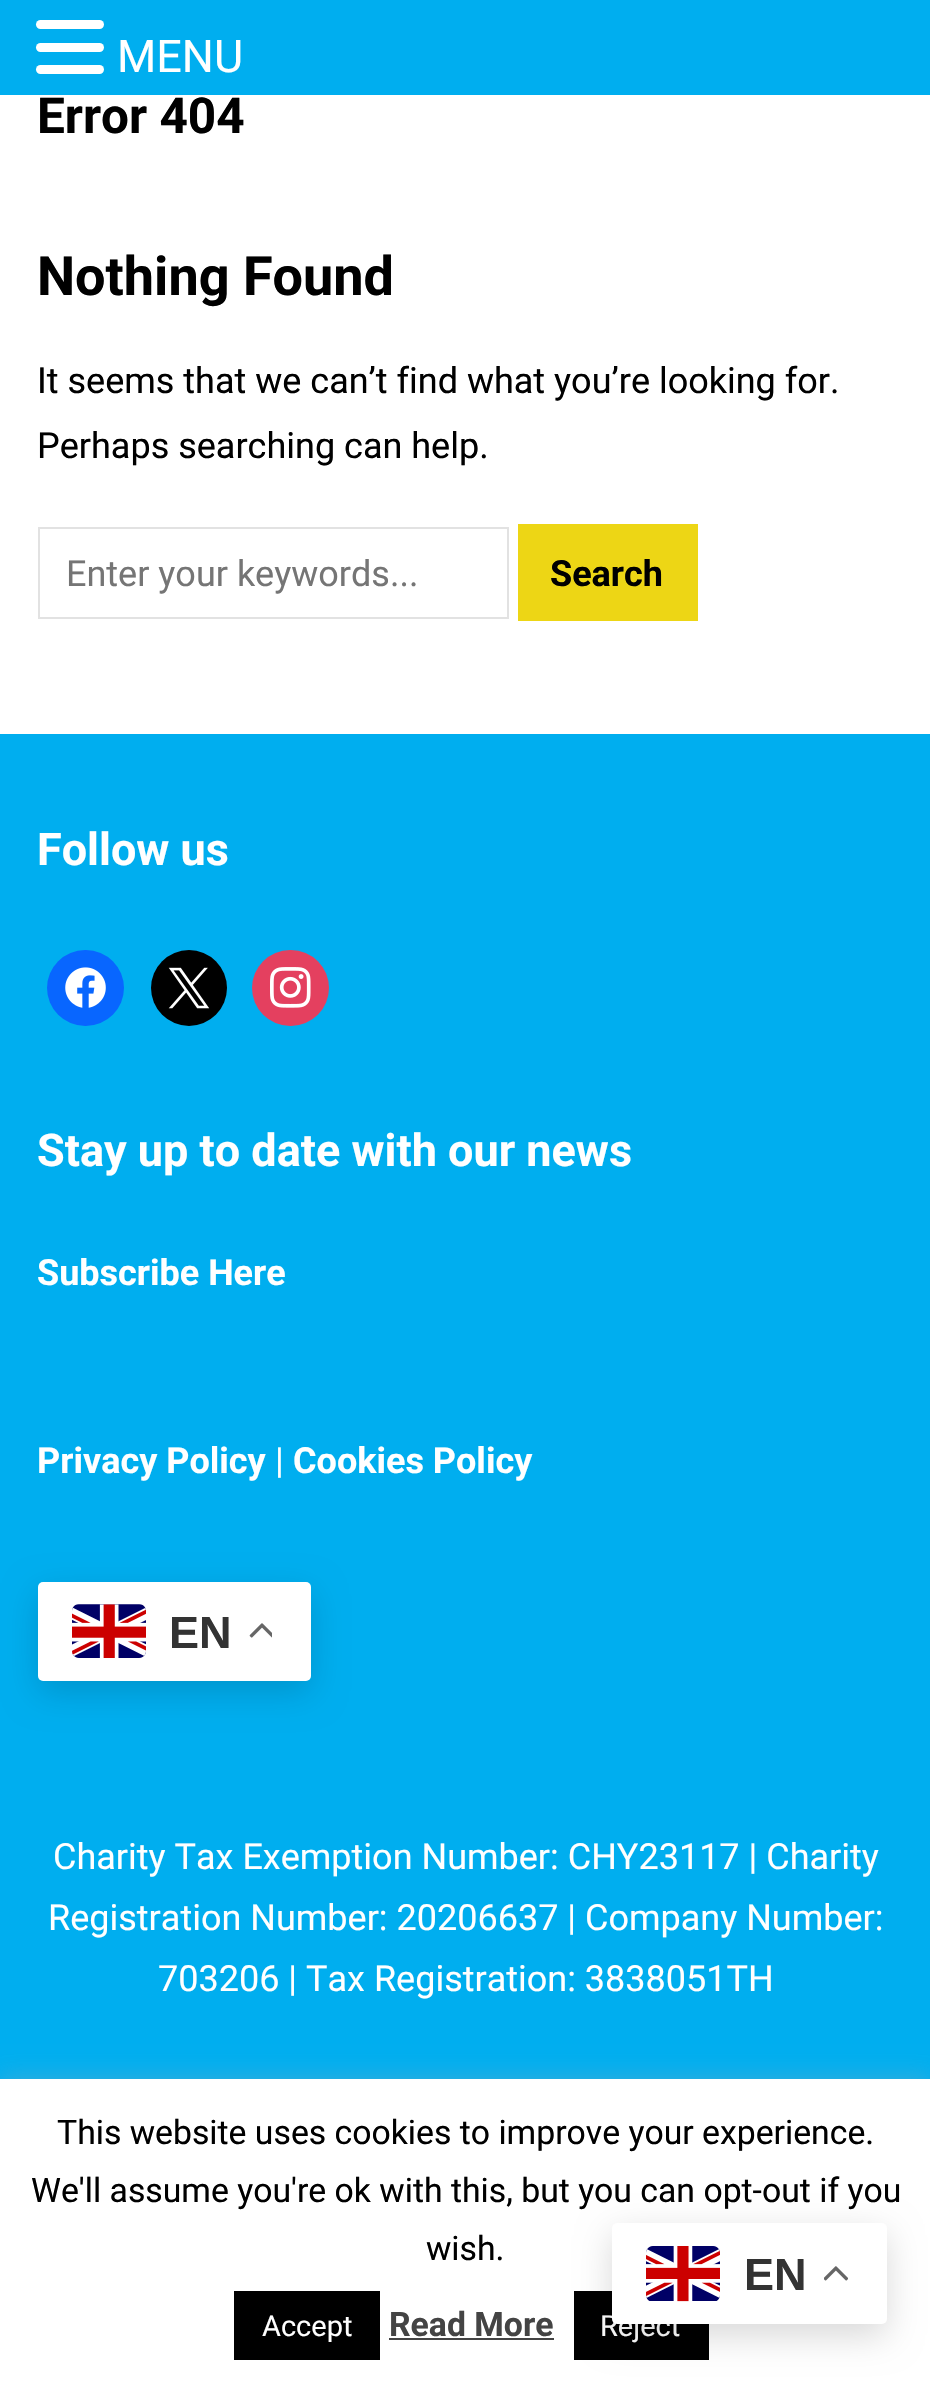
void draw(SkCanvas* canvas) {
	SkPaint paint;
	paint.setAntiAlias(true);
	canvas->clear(0xffffffff);
	paint.setColor(0xff00aeef);
	canvas->drawRect(SkRect::MakeXYWH(0, 0, 930, 95), paint);
	paint.setColor(0xffffffff);
	canvas->drawRoundRect(SkRect::MakeXYWH(36, 20, 68, 9), 4.5, 4.5, paint);
	canvas->drawRoundRect(SkRect::MakeXYWH(36, 43, 68, 9), 4.5, 4.5, paint);
	canvas->drawRoundRect(SkRect::MakeXYWH(36, 65, 68, 9), 4.5, 4.5, paint);
	SkFont f1(fontMgr->matchFamilyStyle("Roboto", SkFontStyle::Normal()), 45);
	f1.setSubpixel(true);
	canvas->drawString("MENU", 117, 72, f1, paint);
	SkFont f2(fontMgr->matchFamilyStyle("Roboto", SkFontStyle::Bold()), 49.5);
	f2.setSubpixel(true);
	paint.setColor(0xff000000);
	canvas->drawString("Error 404", 37, 133, f2, paint);
	SkFont f3(fontMgr->matchFamilyStyle("Roboto", SkFontStyle::Bold()), 54);
	f3.setSubpixel(true);
	canvas->drawString("Nothing Found", 37, 295, f3, paint);
	SkFont f4(fontMgr->matchFamilyStyle("Roboto", SkFontStyle::Normal()), 36);
	f4.setSubpixel(true);
	canvas->drawString("It seems that we can’t find what you’re looking for.", 37, 393, f4, paint);
	canvas->drawString("Perhaps searching can help.", 37, 458, f4, paint);
	paint.setStroke(true);
	paint.setStrokeWidth(2);
	paint.setColor(0xffe2e2e2);
	canvas->drawRect(SkRect::MakeXYWH(39, 528, 469, 90), paint);
	paint.setStroke(false);
	paint.setColor(0xff757575);
	canvas->drawString("Enter your keywords...", 66, 586, f4, paint);
	paint.setColor(0xffedd615);
	canvas->drawRect(SkRect::MakeXYWH(518, 524, 180, 97), paint);
	SkFont f5(fontMgr->matchFamilyStyle("Roboto", SkFontStyle::Bold()), 36);
	f5.setSubpixel(true);
	paint.setColor(0xff000000);
	canvas->drawString("Search", 550, 586, f5, paint);
	paint.setColor(0xff00aeef);
	canvas->drawRect(SkRect::MakeXYWH(0, 734, 930, 1345), paint);
	SkFont f6(fontMgr->matchFamilyStyle("Roboto", SkFontStyle::Bold()), 45);
	f6.setSubpixel(true);
	paint.setColor(0xffffffff);
	canvas->drawString("Follow us", 37, 865, f6, paint);
	paint.setColor(0xff0866ff);
	canvas->drawRoundRect(SkRect::MakeXYWH(47, 950, 77, 76), 38, 38, paint);
	canvas->drawImageRect(SkImages::DeferredFromEncodedData(SkData::MakeFromFileName("img1.png")), SkRect::MakeXYWH(65, 967, 41, 41), SkSamplingOptions());
	paint.setColor(0xff000000);
	canvas->drawCircle(189, 988, 38, paint);
	canvas->drawImageRect(SkImages::DeferredFromEncodedData(SkData::MakeFromFileName("img2.png")), SkRect::MakeXYWH(168, 967, 42, 42), SkSamplingOptions());
	paint.setColor(0xffe4405f);
	canvas->drawRoundRect(SkRect::MakeXYWH(252, 950, 77, 76), 38, 38, paint);
	canvas->drawImageRect(SkImages::DeferredFromEncodedData(SkData::MakeFromFileName("img3.png")), SkRect::MakeXYWH(270, 967, 41, 41), SkSamplingOptions());
	paint.setColor(0xffffffff);
	canvas->drawString("Stay up to date with our news", 37, 1166, f6, paint);
	canvas->drawString("Subscribe Here", 37, 1285, f5, paint);
	canvas->drawString("Privacy Policy", 37, 1473, f5, paint);
	canvas->drawString("|", 275, 1473, f4, paint);
	canvas->drawString("Cookies Policy", 293, 1473, f5, paint);
	paint.setColor(0x26000000);
	paint.setMaskFilter(SkMaskFilter::MakeBlur(kNormal_SkBlurStyle, 17));
	canvas->drawRoundRect(SkRect::MakeXYWH(38, 1593, 273, 99), 5, 5, paint);
	paint.setMaskFilter(nullptr);
	paint.setColor(0xffffffff);
	canvas->drawRoundRect(SkRect::MakeXYWH(38, 1582, 273, 99), 5, 5, paint);
	canvas->drawImageRect(SkImages::DeferredFromEncodedData(SkData::MakeFromFileName("img4.png")), SkRect::MakeXYWH(72, 1604, 74, 54), SkSamplingOptions());
	SkFont f7(fontMgr->matchFamilyStyle("Liberation Sans", SkFontStyle::Bold()), 45);
	f7.setSubpixel(true);
	paint.setColor(0xff333333);
	canvas->drawString("EN", 169, 1648, f7, paint);
	canvas->drawImageRect(SkImages::DeferredFromEncodedData(SkData::MakeFromFileName("img5.png")), SkRect::MakeXYWH(249, 1623, 23, 15), SkSamplingOptions());
	paint.setColor(0xffffffff);
	canvas->drawString("Charity Tax Exemption Number: CHY23117 | Charity", 53, 1869, f4, paint);
	canvas->drawString("Registration Number: 20206637 | Company Number:", 48, 1930, f4, paint);
	canvas->drawString("703206 | Tax Registration: 3838051TH", 158, 1991, f4, paint);
	paint.setColor(0x4dacabab);
	paint.setMaskFilter(SkMaskFilter::MakeBlur(kNormal_SkBlurStyle, 11));
	canvas->drawRect(SkRect::MakeXYWH(0, 2077, 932, 308), paint);
	paint.setMaskFilter(nullptr);
	paint.setColor(0xffffffff);
	canvas->drawRect(SkRect::MakeXYWH(0, 2079, 930, 308), paint);
	SkFont f8(fontMgr->matchFamilyStyle("Roboto", SkFontStyle::Normal()), 33.75);
	f8.setSubpixel(true);
	paint.setColor(0xff000000);
	canvas->drawString("This website uses cookies to improve your experience.", 57, 2144, f8, paint);
	canvas->drawString("We'll assume you're ok with this, but you can opt-out if you", 31, 2202, f8, paint);
	canvas->drawString("wish.", 426, 2260, f8, paint);
	canvas->drawRect(SkRect::MakeXYWH(234, 2291, 146, 69), paint);
	SkFont f9(fontMgr->matchFamilyStyle("Roboto", SkFontStyle::Normal()), 29);
	f9.setSubpixel(true);
	paint.setColor(0xffffffff);
	canvas->drawString("Accept", 262, 2336, f9, paint);
	SkFont f10(fontMgr->matchFamilyStyle("Roboto", SkFontStyle::Bold()), 33.75);
	f10.setSubpixel(true);
	paint.setColor(0xff444444);
	canvas->drawString("Read More", 389, 2336, f10, paint);
	canvas->drawRect(SkRect::MakeXYWH(389, 2338, 165, 2), paint);
	paint.setColor(0xff000000);
	canvas->drawRect(SkRect::MakeXYWH(574, 2291, 135, 69), paint);
	paint.setColor(0xffffffff);
	canvas->drawString("Reject", 600, 2336, f9, paint);
	paint.setColor(0x26000000);
	paint.setMaskFilter(SkMaskFilter::MakeBlur(kNormal_SkBlurStyle, 17));
	canvas->drawRoundRect(SkRect::MakeXYWH(612, 2234, 275, 102), 5, 5, paint);
	paint.setMaskFilter(nullptr);
	paint.setColor(0xffffffff);
	canvas->drawRoundRect(SkRect::MakeXYWH(612, 2223, 275, 101), 5, 5, paint);
	canvas->drawImageRect(SkImages::DeferredFromEncodedData(SkData::MakeFromFileName("img6.png")), SkRect::MakeXYWH(646, 2246, 74, 56), SkSamplingOptions());
	paint.setColor(0xff333333);
	canvas->drawString("EN", 744, 2290, f7, paint);
	canvas->drawImageRect(SkImages::DeferredFromEncodedData(SkData::MakeFromFileName("img7.png")), SkRect::MakeXYWH(824, 2266, 24, 15), SkSamplingOptions());
}
